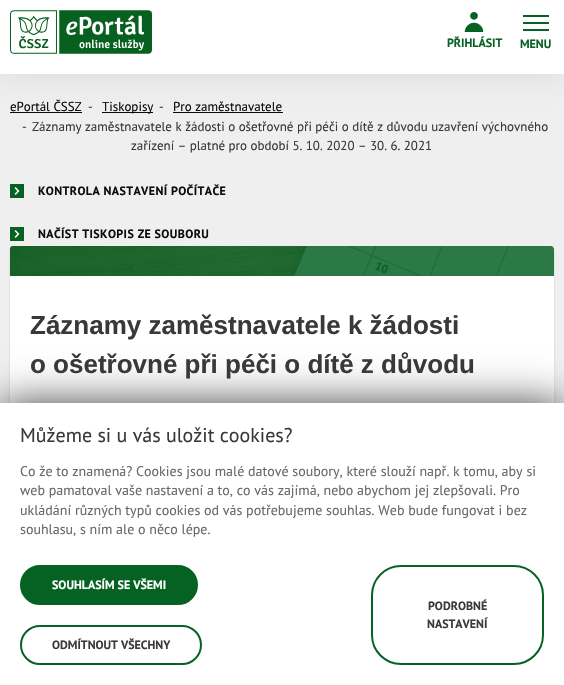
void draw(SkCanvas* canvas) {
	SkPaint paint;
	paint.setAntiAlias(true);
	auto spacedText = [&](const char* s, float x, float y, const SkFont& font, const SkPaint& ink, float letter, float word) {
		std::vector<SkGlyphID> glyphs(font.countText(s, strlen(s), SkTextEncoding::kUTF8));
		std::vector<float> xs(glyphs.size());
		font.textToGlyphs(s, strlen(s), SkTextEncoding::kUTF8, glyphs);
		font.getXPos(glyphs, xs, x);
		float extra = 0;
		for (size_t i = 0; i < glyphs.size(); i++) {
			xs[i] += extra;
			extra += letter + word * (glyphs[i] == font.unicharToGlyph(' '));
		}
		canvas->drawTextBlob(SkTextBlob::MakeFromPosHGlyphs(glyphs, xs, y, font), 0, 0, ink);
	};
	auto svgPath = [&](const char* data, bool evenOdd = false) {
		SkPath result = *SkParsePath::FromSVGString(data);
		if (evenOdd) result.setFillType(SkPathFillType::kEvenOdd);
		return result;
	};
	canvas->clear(0xffefefef);
	paint.setColor(0xff0b0c0c);
	canvas->drawRect(SkRect::MakeXYWH(10, 112, 72, 1), paint);
	canvas->drawRect(SkRect::MakeXYWH(102, 112, 51, 1), paint);
	canvas->drawRect(SkRect::MakeXYWH(173, 112, 110, 1), paint);
	paint.setColor(0x1a000000);
	paint.setMaskFilter(SkMaskFilter::MakeBlur(kNormal_SkBlurStyle, 15));
	canvas->drawRect(SkRect::MakeXYWH(0, 0, 564, 74), paint);
	paint.setMaskFilter(nullptr);
	paint.setColor(0xffffffff);
	canvas->drawRect(SkRect::MakeXYWH(0, 0, 564, 74), paint);
	canvas->drawImageRect(SkImages::DeferredFromEncodedData(SkData::MakeFromFileName("img1.png")), SkRect::MakeXYWH(10, 10, 142, 44), SkSamplingOptions());
	canvas->drawImageRect(SkImages::DeferredFromEncodedData(SkData::MakeFromFileName("img2.png")), SkRect::MakeXYWH(464, 12, 20, 20), SkSamplingOptions());
	SkFont f1(fontMgr->matchFamilyStyle("PT Sans", SkFontStyle::Bold()), 12);
	f1.setSubpixel(true);
	paint.setColor(0xff066223);
	canvas->drawString("PŘIHLÁSIT", 447, 47, f1, paint);
	canvas->drawRect(SkRect::MakeXYWH(523, 15, 26, 2), paint);
	canvas->drawRect(SkRect::MakeXYWH(523, 22, 26, 2), paint);
	canvas->drawRect(SkRect::MakeXYWH(523, 29, 26, 2), paint);
	canvas->drawString("MENU", 520, 48, f1, paint);
	SkFont f2(fontMgr->matchFamilyStyle("PT Sans", SkFontStyle::Normal()), 13);
	f2.setSubpixel(true);
	paint.setColor(0xff0b0c0c);
	canvas->drawString("ePortál ČSSZ", 10, 111, f2, paint);
	paint.setColor(0xff393939);
	canvas->drawString("-", 88, 111, f2, paint);
	paint.setColor(0xff0b0c0c);
	canvas->drawString("Tiskopisy", 102, 111, f2, paint);
	paint.setColor(0xff393939);
	canvas->drawString("-", 159, 111, f2, paint);
	paint.setColor(0xff0b0c0c);
	canvas->drawString("Pro zaměstnavatele", 173, 111, f2, paint);
	paint.setColor(0xff393939);
	canvas->drawString("-", 22, 131, f2, paint);
	canvas->drawString("Záznamy zaměstnavatele k žádosti o ošetřovné při péči o dítě z důvodu uzavření výchovného", 32, 131, f2, paint);
	canvas->drawString("zařízení – platné pro období 5. 10. 2020 – 30. 6. 2021", 131, 150, f2, paint);
	paint.setColor(0xff066223);
	canvas->drawRect(SkRect::MakeXYWH(10, 184, 14, 14), paint);
	canvas->drawImageRect(SkImages::DeferredFromEncodedData(SkData::MakeFromFileName("img3.png")), SkRect::MakeXYWH(14, 187, 6, 8), SkSamplingOptions());
	paint.setColor(0xff0b0c0c);
	spacedText("KONTROLA NASTAVENÍ POČÍTAČE", 38, 195, f1, paint, 0.4, 0);
	paint.setColor(0xff066223);
	canvas->drawRect(SkRect::MakeXYWH(10, 227, 14, 14), paint);
	canvas->drawImageRect(SkImages::DeferredFromEncodedData(SkData::MakeFromFileName("img3.png")), SkRect::MakeXYWH(14, 230, 6, 8), SkSamplingOptions());
	paint.setColor(0xff0b0c0c);
	spacedText("NAČÍST TISKOPIS ZE SOUBORU", 38, 238, f1, paint, 0.4, 0);
	paint.setColor(0x2e0b0c0c);
	paint.setMaskFilter(SkMaskFilter::MakeBlur(kNormal_SkBlurStyle, 1));
	canvas->drawRoundRect(SkRect::MakeXYWH(10, 248, 544, 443), 3, 3, paint);
	paint.setMaskFilter(nullptr);
	paint.setColor(0xffffffff);
	canvas->drawRoundRect(SkRect::MakeXYWH(10, 246, 544, 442), 3, 3, paint);
	canvas->drawImageRect(SkImages::DeferredFromEncodedData(SkData::MakeFromFileName("img4.png")), SkRect::MakeXYWH(10, 246, 544, 30), SkSamplingOptions());
	paint.setColor(0xd9066223);
	canvas->drawPath(svgPath("M13 246H551C552.5 246 554 247.5 554 249V276H10V249C10 247.5 11.5 246 13 246Z"), paint);
	SkFont f3(fontMgr->matchFamilyStyle("Liberation Sans", SkFontStyle::Bold()), 26);
	f3.setSubpixel(true);
	paint.setColor(0xff393939);
	canvas->drawString("Záznamy zaměstnavatele k žádosti", 30, 334, f3, paint);
	canvas->drawString("o ošetřovné při péči o dítě z důvodu", 30, 373, f3, paint);
	paint.setColor(0xff3b3b3b);
	paint.setMaskFilter(SkMaskFilter::MakeBlur(kNormal_SkBlurStyle, 20));
	canvas->drawRect(SkRect::MakeXYWH(0, 404, 564, 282), paint);
	paint.setMaskFilter(nullptr);
	paint.setColor(0xffffffff);
	canvas->drawRect(SkRect::MakeXYWH(0, 403, 564, 282), paint);
	SkFont f4(fontMgr->matchFamilyStyle("PT Sans", SkFontStyle::Normal()), 20);
	f4.setSubpixel(true);
	paint.setColor(0xff393939);
	canvas->drawString("Můžeme si u vás uložit cookies?", 20, 442, f4, paint);
	SkFont f5(fontMgr->matchFamilyStyle("PT Sans", SkFontStyle::Normal()), 14);
	f5.setSubpixel(true);
	paint.setColor(0xff686868);
	canvas->drawString("Co že to znamená? Cookies jsou malé datové soubory, které slouží např. k tomu, aby si", 20, 476, f5, paint);
	canvas->drawString("web pamatoval vaše nastavení a to, co vás zajímá, nebo abychom jej zlepšovali. Pro", 20, 495, f5, paint);
	canvas->drawString("ukládání různých typů cookies od vás potřebujeme souhlas. Web bude fungovat i bez", 20, 515, f5, paint);
	canvas->drawString("souhlasu, s ním ale o něco lépe.", 20, 534, f5, paint);
	paint.setColor(0xff066223);
	canvas->drawRoundRect(SkRect::MakeXYWH(21, 566, 176, 38), 19, 19, paint);
	paint.setStroke(true);
	paint.setStrokeWidth(2);
	canvas->drawRoundRect(SkRect::MakeXYWH(21, 566, 176, 38), 19, 19, paint);
	paint.setStroke(false);
	paint.setColor(0xffffffff);
	canvas->drawString("SOUHLASÍM SE VŠEMI", 52, 589, f1, paint);
	paint.setStroke(true);
	paint.setColor(0xff066223);
	canvas->drawRoundRect(SkRect::MakeXYWH(21, 626, 180, 38), 19, 19, paint);
	paint.setStroke(false);
	paint.setColor(0xff393939);
	canvas->drawString("ODMÍTNOUT VŠECHNY", 52, 649, f1, paint);
	paint.setStroke(true);
	paint.setColor(0xff066223);
	canvas->drawRoundRect(SkRect::MakeXYWH(372, 566, 171, 98), 29, 29, paint);
	paint.setStroke(false);
	paint.setColor(0xff393939);
	canvas->drawString("PODROBNÉ", 428, 610, f1, paint);
	canvas->drawString("NASTAVENÍ", 427, 628, f1, paint);
}
